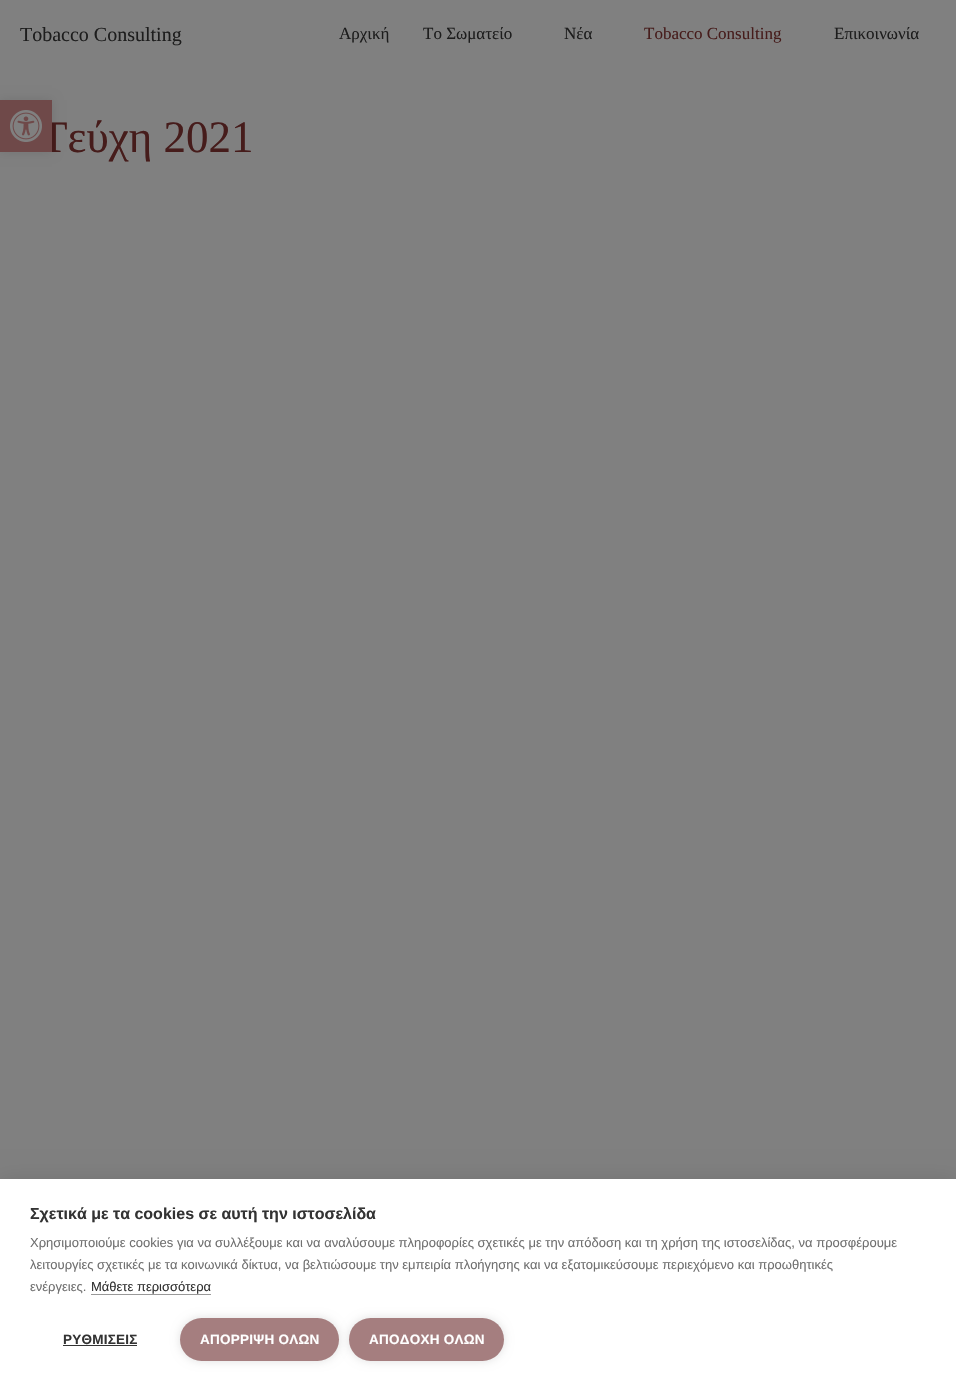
void draw(SkCanvas* canvas) {
	SkPaint paint;
	paint.setAntiAlias(true);
	auto spacedText = [&](const char* s, float x, float y, const SkFont& font, const SkPaint& ink, float letter, float word) {
		std::vector<SkGlyphID> glyphs(font.countText(s, strlen(s), SkTextEncoding::kUTF8));
		std::vector<float> xs(glyphs.size());
		font.textToGlyphs(s, strlen(s), SkTextEncoding::kUTF8, glyphs);
		font.getXPos(glyphs, xs, x);
		float extra = 0;
		for (size_t i = 0; i < glyphs.size(); i++) {
			xs[i] += extra;
			extra += letter + word * (glyphs[i] == font.unicharToGlyph(' '));
		}
		canvas->drawTextBlob(SkTextBlob::MakeFromPosHGlyphs(glyphs, xs, y, font), 0, 0, ink);
	};
	canvas->clear(0xff808080);
	SkFont f1(fontMgr->matchFamilyStyle("Liberation Serif", SkFontStyle::Normal()), 20);
	f1.setSubpixel(true);
	paint.setColor(0xff1d1d1d);
	canvas->drawString("Tobacco Consulting", 20, 41, f1, paint);
	SkFont f2(fontMgr->matchFamilyStyle("Liberation Serif", SkFontStyle::Normal()), 17);
	f2.setSubpixel(true);
	canvas->drawString("Αρχική", 339, 39, f2, paint);
	canvas->drawString("Το Σωματείο", 423, 39, f2, paint);
	canvas->drawString("Νέα", 564, 39, f2, paint);
	paint.setColor(0xff461c1b);
	canvas->drawString("Tobacco Consulting", 644, 39, f2, paint);
	paint.setColor(0xff1d1d1d);
	canvas->drawString("Επικοινωνία", 834, 39, f2, paint);
	SkFont f3(fontMgr->matchFamilyStyle("Liberation Serif", SkFontStyle::Normal()), 45);
	f3.setSubpixel(true);
	paint.setColor(0xff461c1b);
	canvas->drawString("Τεύχη 2021", 40, 152, f3, paint);
	paint.setColor(0x1a000000);
	paint.setMaskFilter(SkMaskFilter::MakeBlur(kNormal_SkBlurStyle, 5));
	canvas->drawRect(SkRect::MakeXYWH(0, 100, 52, 52), paint);
	paint.setMaskFilter(nullptr);
	paint.setColor(0xff6f4949);
	canvas->drawRect(SkRect::MakeXYWH(0, 100, 52, 52), paint);
	canvas->drawImageRect(SkImages::DeferredFromEncodedData(SkData::MakeFromFileName("img1.png")), SkRect::MakeXYWH(10, 110, 32, 32), SkSamplingOptions());
	paint.setColor(0x1a000000);
	paint.setMaskFilter(SkMaskFilter::MakeBlur(kNormal_SkBlurStyle, 10));
	canvas->drawRect(SkRect::MakeXYWH(0, 1179, 956, 207), paint);
	paint.setMaskFilter(nullptr);
	paint.setColor(0xffffffff);
	canvas->drawRect(SkRect::MakeXYWH(0, 1179, 956, 207), paint);
	SkFont f4(fontMgr->matchFamilyStyle("Liberation Sans", SkFontStyle::Bold()), 16);
	f4.setSubpixel(true);
	paint.setColor(0xff333333);
	canvas->drawString("Σχετικά με τα cookies σε αυτή την ιστοσελίδα", 30, 1219, f4, paint);
	SkFont f5(fontMgr->matchFamilyStyle("Liberation Sans", SkFontStyle::Normal()), 13);
	f5.setSubpixel(true);
	paint.setColor(0xff707070);
	canvas->drawString("Χρησιμοποιούμε cookies για να συλλέξουμε και να αναλύσουμε πληροφορίες σχετικές με την απόδοση και τη χρήση της ιστοσελίδας, να προσφέρουμε", 30, 1247, f5, paint);
	canvas->drawString("λειτουργίες σχετικές με τα κοινωνικά δίκτυα, να βελτιώσουμε την εμπειρία πλοήγησης και να εξατομικεύσουμε περιεχόμενο και προωθητικές", 30, 1269, f5, paint);
	canvas->drawString("ενέργειες.", 30, 1291, f5, paint);
	paint.setColor(0xff333333);
	canvas->drawString("Μάθετε περισσότερα", 91, 1291, f5, paint);
	paint.setColor(0xff999999);
	canvas->drawRect(SkRect::MakeXYWH(91, 1294, 120, 1), paint);
	SkFont f6(fontMgr->matchFamilyStyle("Liberation Sans", SkFontStyle::Bold()), 13.5);
	f6.setSubpixel(true);
	paint.setColor(0xff333333);
	spacedText("ΡΥΘΜΙΣΕΙΣ", 63, 1344, f6, paint, 0.25, 0);
	canvas->drawRect(SkRect::MakeXYWH(63, 1345, 74, 1), paint);
	paint.setColor(0x1f000000);
	paint.setMaskFilter(SkMaskFilter::MakeBlur(kNormal_SkBlurStyle, 5));
	canvas->drawRoundRect(SkRect::MakeXYWH(180, 1318, 159, 43), 21.5, 21.5, paint);
	paint.setMaskFilter(nullptr);
	paint.setColor(0xffa57e7f);
	canvas->drawRoundRect(SkRect::MakeXYWH(180, 1318, 159, 43), 21.5, 21.5, paint);
	paint.setColor(0xffffffff);
	spacedText("ΑΠΟΡΡΙΨΗ ΟΛΩΝ", 200, 1344, f6, paint, 0.25, 0);
	paint.setColor(0x1f000000);
	paint.setMaskFilter(SkMaskFilter::MakeBlur(kNormal_SkBlurStyle, 5));
	canvas->drawRoundRect(SkRect::MakeXYWH(349, 1318, 155, 43), 21.5, 21.5, paint);
	paint.setMaskFilter(nullptr);
	paint.setColor(0xffa57e7f);
	canvas->drawRoundRect(SkRect::MakeXYWH(349, 1318, 155, 43), 21.5, 21.5, paint);
	paint.setColor(0xffffffff);
	spacedText("ΑΠΟΔΟΧΗ ΟΛΩΝ", 369, 1344, f6, paint, 0.25, 0);
}
